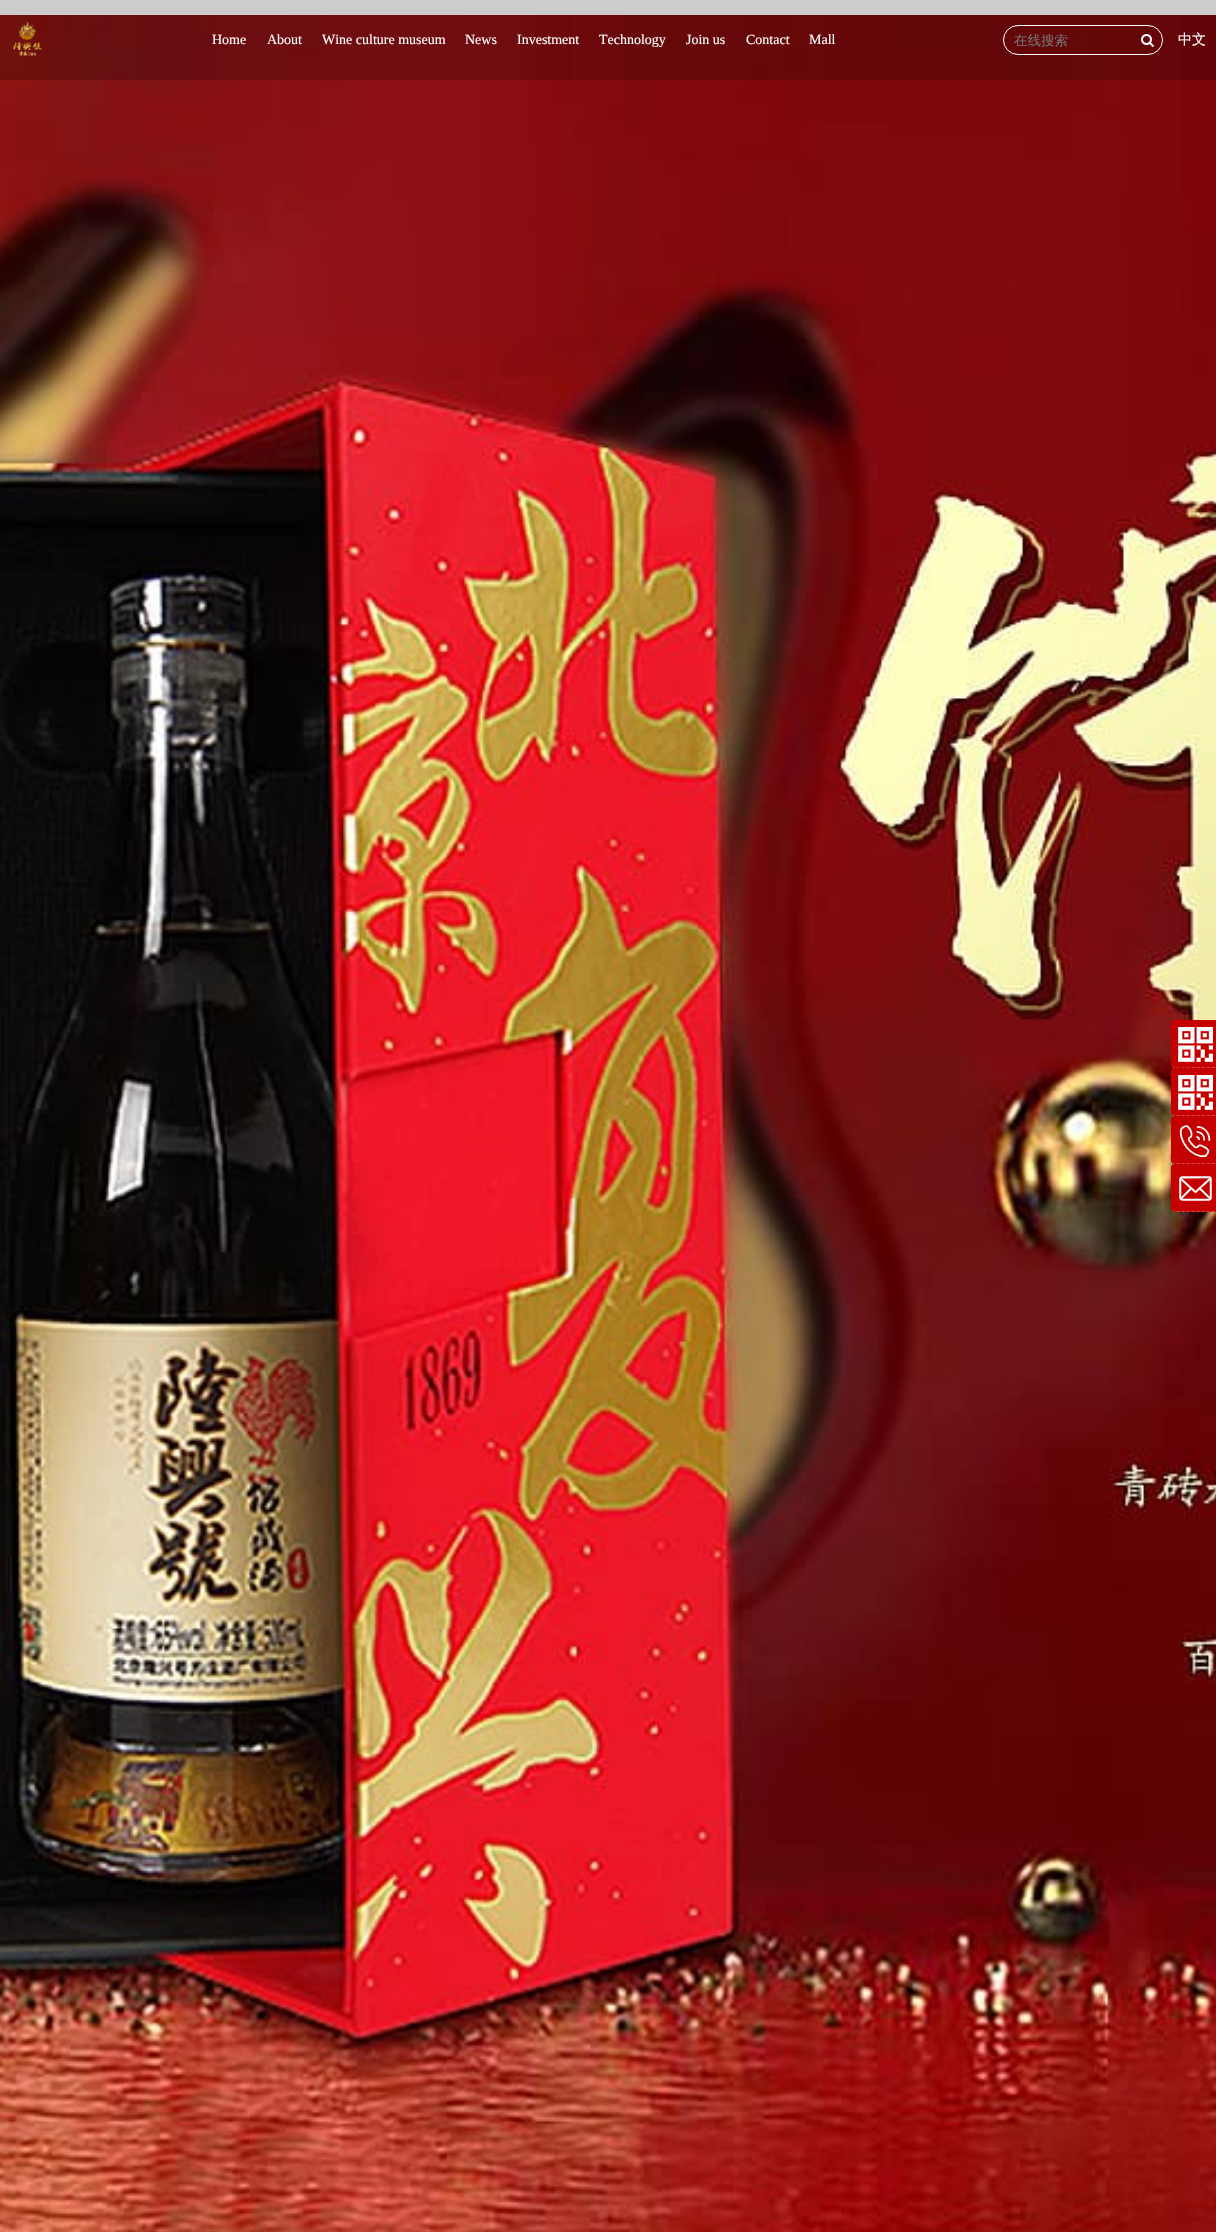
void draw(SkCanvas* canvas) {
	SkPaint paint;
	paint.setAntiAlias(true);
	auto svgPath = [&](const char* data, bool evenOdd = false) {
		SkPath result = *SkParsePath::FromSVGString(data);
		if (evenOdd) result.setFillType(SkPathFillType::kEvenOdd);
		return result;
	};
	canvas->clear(0xffffffff);
	canvas->drawImageRect(SkImages::DeferredFromEncodedData(SkData::MakeFromFileName("img1.png")), SkRect::MakeXYWH(0, 15, 1216, 2217), SkSamplingOptions());
	paint.setColor(0x33000000);
	canvas->drawRect(SkRect::MakeXYWH(0, 0, 1216, 80), paint);
	canvas->drawImageRect(SkImages::DeferredFromEncodedData(SkData::MakeFromFileName("img2.png")), SkRect::MakeXYWH(13, 21, 29, 35), SkSamplingOptions());
	SkFont f1(fontMgr->matchFamilyStyle("Liberation Serif", SkFontStyle::Normal()), 14);
	f1.setSubpixel(true);
	paint.setColor(0xffffffff);
	canvas->drawString("Home", 212, 44, f1, paint);
	canvas->drawString("About", 267, 44, f1, paint);
	canvas->drawString("Wine culture museum", 322, 44, f1, paint);
	canvas->drawString("News", 465, 44, f1, paint);
	canvas->drawString("Investment", 517, 44, f1, paint);
	canvas->drawString("Technology", 599, 44, f1, paint);
	canvas->drawString("Join us", 686, 44, f1, paint);
	canvas->drawString("Contact", 746, 44, f1, paint);
	canvas->drawString("Mall", 809, 44, f1, paint);
	paint.setStroke(true);
	paint.setStrokeWidth(1);
	canvas->drawRoundRect(SkRect::MakeXYWH(1003.5, 25.5, 159, 29), 14.5, 14.5, paint);
	SkFont f2(fontMgr->matchFamilyStyle("WenQuanYi Zen Hei", SkFontStyle(500, SkFontStyle::kNormal_Width, SkFontStyle::kUpright_Slant)), 13.5);
	f2.setSubpixel(true);
	paint.setStroke(false);
	paint.setColor(0xff757575);
	canvas->drawString("在线搜索", 1014, 45, f2, paint);
	canvas->drawImageRect(SkImages::DeferredFromEncodedData(SkData::MakeFromFileName("img3.png")), SkRect::MakeXYWH(1141, 34, 13, 13), SkSamplingOptions());
	SkFont f3(fontMgr->matchFamilyStyle("WenQuanYi Zen Hei", SkFontStyle(500, SkFontStyle::kNormal_Width, SkFontStyle::kUpright_Slant)), 14);
	f3.setSubpixel(true);
	paint.setColor(0xffffffff);
	canvas->drawString("中文", 1178, 44, f3, paint);
	paint.setColor(0xffc40000);
	canvas->drawRoundRect(SkRect::MakeXYWH(1171, 1020, 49, 48), 4, 4, paint);
	paint.setStroke(true);
	paint.setColor(0x4dffffff);
	paint.setPathEffect(SkDashPathEffect::Make({{3, 2}}, 0));
	canvas->drawPath(svgPath("M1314.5 1066.5C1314 1067 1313 1067.5 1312 1067.5H1175C1174 1067.5 1173 1067 1172.5 1066.5"), paint);
	paint.setPathEffect(nullptr);
	paint.setColor(0xffc40000);
	canvas->drawPath(svgPath("M1172.5 1066.5C1170.5 1064.5 1171.5 1059 1171.5 1057.5V1044C1171.5 1014.5 1166.5 1020.5 1198 1020.5H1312C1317 1020.5 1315.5 1028 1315.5 1030.5V1057.5C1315.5 1059 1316.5 1064.5 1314.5 1066.5"), paint);
	canvas->drawImageRect(SkImages::DeferredFromEncodedData(SkData::MakeFromFileName("img4.png")), SkRect::MakeXYWH(1178, 1027, 35, 35), SkSamplingOptions());
	paint.setStroke(false);
	canvas->drawRoundRect(SkRect::MakeXYWH(1171, 1068, 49, 48), 4, 4, paint);
	paint.setStroke(true);
	paint.setColor(0x4dffffff);
	paint.setPathEffect(SkDashPathEffect::Make({{3, 2}}, 0));
	canvas->drawPath(svgPath("M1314.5 1114.5C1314 1115 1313 1115.5 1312 1115.5H1175C1174 1115.5 1173 1115 1172.5 1114.5"), paint);
	paint.setPathEffect(nullptr);
	paint.setColor(0xffc40000);
	canvas->drawPath(svgPath("M1172.5 1114.5C1170.5 1112.5 1171.5 1107 1171.5 1105.5V1092C1171.5 1062.5 1166.5 1068.5 1198 1068.5H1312C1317 1068.5 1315.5 1076 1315.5 1078.5V1105.5C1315.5 1107 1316.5 1112.5 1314.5 1114.5"), paint);
	canvas->drawImageRect(SkImages::DeferredFromEncodedData(SkData::MakeFromFileName("img4.png")), SkRect::MakeXYWH(1178, 1075, 35, 35), SkSamplingOptions());
	paint.setStroke(false);
	canvas->drawRoundRect(SkRect::MakeXYWH(1171, 1116, 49, 48), 4, 4, paint);
	paint.setStroke(true);
	paint.setColor(0x4dffffff);
	paint.setPathEffect(SkDashPathEffect::Make({{3, 2}}, 0));
	canvas->drawPath(svgPath("M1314.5 1162.5C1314 1163 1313 1163.5 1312 1163.5H1175C1174 1163.5 1173 1163 1172.5 1162.5"), paint);
	paint.setPathEffect(nullptr);
	paint.setColor(0xffc40000);
	canvas->drawPath(svgPath("M1172.5 1162.5C1170.5 1160.5 1171.5 1155 1171.5 1153.5V1126.5C1171.5 1124 1170 1116.5 1175 1116.5H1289C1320.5 1116.5 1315.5 1110.5 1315.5 1140V1153.5C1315.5 1155 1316.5 1160.5 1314.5 1162.5"), paint);
	canvas->drawImageRect(SkImages::DeferredFromEncodedData(SkData::MakeFromFileName("img5.png")), SkRect::MakeXYWH(1179, 1125, 32, 32), SkSamplingOptions());
	paint.setStroke(false);
	canvas->drawRoundRect(SkRect::MakeXYWH(1171, 1164, 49, 48), 4, 4, paint);
	paint.setStroke(true);
	paint.setColor(0x4dffffff);
	paint.setPathEffect(SkDashPathEffect::Make({{3, 2}}, 0));
	canvas->drawPath(svgPath("M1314.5 1210.5C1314 1211 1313 1211.5 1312 1211.5H1175C1174 1211.5 1173 1211 1172.5 1210.5"), paint);
	paint.setPathEffect(nullptr);
	paint.setColor(0xffc40000);
	canvas->drawPath(svgPath("M1172.5 1210.5C1170.5 1208.5 1171.5 1203 1171.5 1201.5V1174.5C1171.5 1172 1170 1164.5 1175 1164.5H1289C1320.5 1164.5 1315.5 1158.5 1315.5 1188V1201.5C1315.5 1203 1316.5 1208.5 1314.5 1210.5"), paint);
	canvas->drawImageRect(SkImages::DeferredFromEncodedData(SkData::MakeFromFileName("img6.png")), SkRect::MakeXYWH(1179, 1176, 33, 25), SkSamplingOptions());
}
